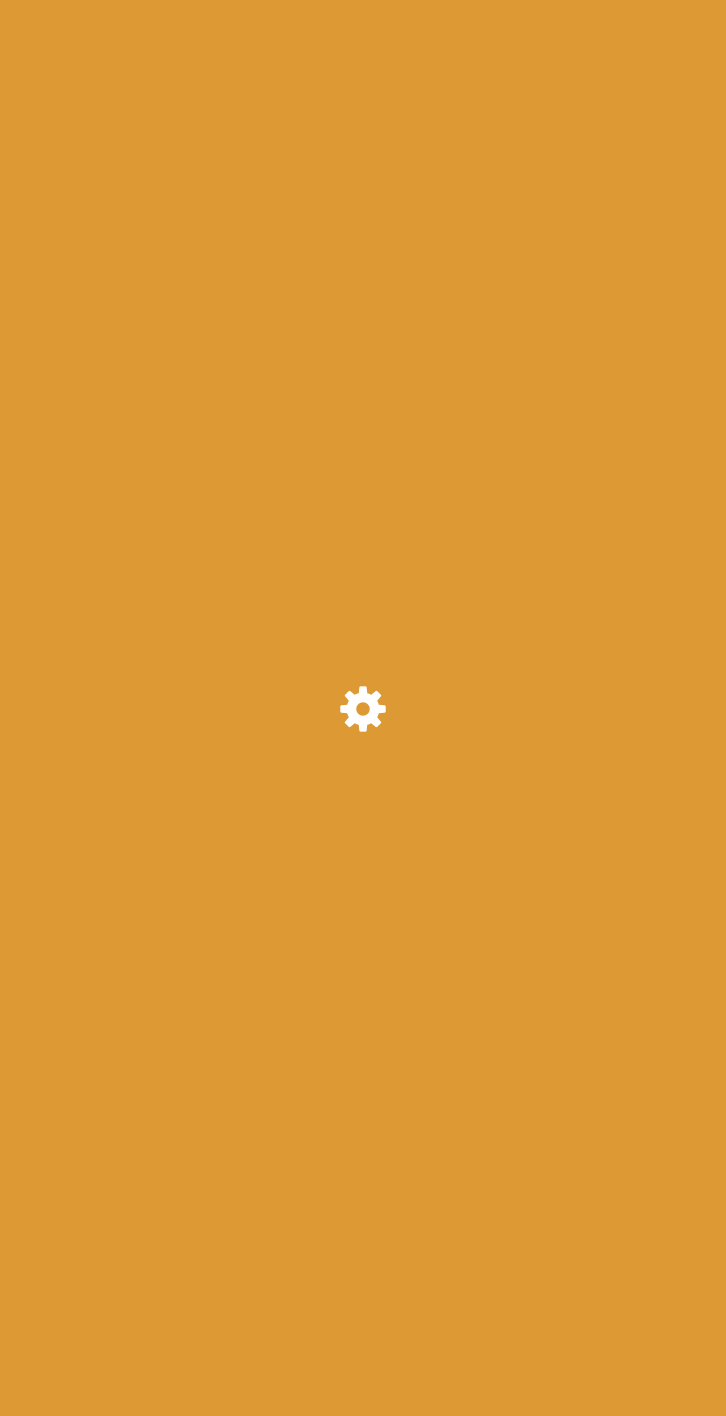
void draw(SkCanvas* canvas) {
	SkPaint paint;
	paint.setAntiAlias(true);
	canvas->clear(0xffdd9933);
	canvas->drawImageRect(SkImages::DeferredFromEncodedData(SkData::MakeFromFileName("img1.png")), SkRect::MakeXYWH(340, 686, 46, 46), SkSamplingOptions());
}
